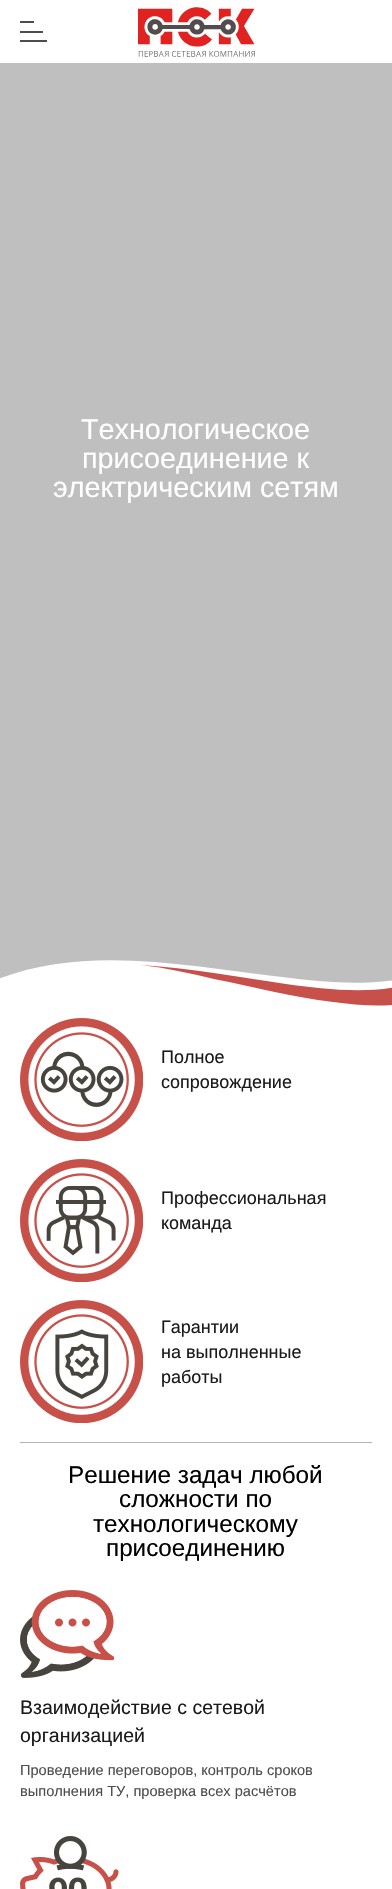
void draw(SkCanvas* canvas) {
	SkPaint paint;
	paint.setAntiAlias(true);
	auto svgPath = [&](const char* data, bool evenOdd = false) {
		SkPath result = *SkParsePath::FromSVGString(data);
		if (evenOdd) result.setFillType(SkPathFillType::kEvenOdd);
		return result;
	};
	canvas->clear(0xffffffff);
	paint.setColor(0xffbfbfbf);
	canvas->drawRect(SkRect::MakeXYWH(0, 63, 392, 920), paint);
	paint.setColor(0xff4d4d4d);
	canvas->drawRect(SkRect::MakeXYWH(20, 21, 14, 2), paint);
	canvas->drawRect(SkRect::MakeXYWH(20, 31, 23, 2), paint);
	canvas->drawRect(SkRect::MakeXYWH(20, 40, 27, 2), paint);
	canvas->drawImageRect(SkImages::DeferredFromEncodedData(SkData::MakeFromFileName("img1.png")), SkRect::MakeXYWH(138, 7, 117, 50), SkSamplingOptions());
	SkFont f1(fontMgr->matchFamilyStyle("Liberation Sans", SkFontStyle::Normal()), 28.75);
	f1.setSubpixel(true);
	paint.setColor(0xffffffff);
	canvas->drawString("Технологическое", 81, 439, f1, paint);
	canvas->drawString("присоединение к", 82, 468, f1, paint);
	canvas->drawString("электрическим сетям", 53, 497, f1, paint);
	canvas->save();
	canvas->clipRect(SkRect::MakeXYWH(0, 960, 392, 48));
	canvas->drawPath(svgPath("M-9 982C82 943 187 966 282 977C321 982 362 986 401 979V1009H-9Z"), paint);
	canvas->restore();
	paint.setColor(0xffc7504a);
	canvas->drawPath(svgPath("M214 979C254 987 293 997 333 1002C355 1005 379 1007 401 1004V986C365 994 322 989 286 984C238 977 190 968 141 965C166 968 190 973 214 979"), paint);
	canvas->drawImageRect(SkImages::DeferredFromEncodedData(SkData::MakeFromFileName("img2.png")), SkRect::MakeXYWH(20, 1018, 123, 123), SkSamplingOptions());
	SkFont f2(fontMgr->matchFamilyStyle("Liberation Sans", SkFontStyle::Normal()), 18);
	f2.setSubpixel(true);
	paint.setColor(0xff1a1a1a);
	canvas->drawString("Полное", 161, 1063, f2, paint);
	canvas->drawString("сопровождение", 161, 1088, f2, paint);
	canvas->drawImageRect(SkImages::DeferredFromEncodedData(SkData::MakeFromFileName("img3.png")), SkRect::MakeXYWH(20, 1159, 123, 123), SkSamplingOptions());
	canvas->drawString("Профессиональная", 161, 1204, f2, paint);
	canvas->drawString("команда", 161, 1229, f2, paint);
	canvas->drawImageRect(SkImages::DeferredFromEncodedData(SkData::MakeFromFileName("img4.png")), SkRect::MakeXYWH(20, 1300, 123, 123), SkSamplingOptions());
	canvas->drawString("Гарантии", 161, 1333, f2, paint);
	canvas->drawString("на выполненные", 161, 1358, f2, paint);
	canvas->drawString("работы", 161, 1383, f2, paint);
	paint.setColor(0xffb4b4b4);
	canvas->drawRect(SkRect::MakeXYWH(20, 1442, 352, 1), paint);
	SkFont f3(fontMgr->matchFamilyStyle("Liberation Sans", SkFontStyle::Normal()), 24.25);
	f3.setSubpixel(true);
	paint.setColor(0xff000000);
	canvas->drawString("Решение задач любой", 68, 1483, f3, paint);
	canvas->drawString("сложности по", 119, 1507, f3, paint);
	canvas->drawString("технологическому", 93, 1532, f3, paint);
	canvas->drawString("присоединению", 106, 1556, f3, paint);
	canvas->drawImageRect(SkImages::DeferredFromEncodedData(SkData::MakeFromFileName("img5.png")), SkRect::MakeXYWH(20, 1590, 94, 88), SkSamplingOptions());
	SkFont f4(fontMgr->matchFamilyStyle("Liberation Sans", SkFontStyle::Normal()), 19.5);
	f4.setSubpixel(true);
	paint.setColor(0xff1a1a1a);
	canvas->drawString("Взаимодействие с сетевой", 20, 1714, f4, paint);
	canvas->drawString("организацией", 20, 1742, f4, paint);
	SkFont f5(fontMgr->matchFamilyStyle("Liberation Sans", SkFontStyle::Normal()), 14.6);
	f5.setSubpixel(true);
	paint.setColor(0xff4d4d4d);
	canvas->drawString("Проведение переговоров, контроль сроков", 20, 1775, f5, paint);
	canvas->drawString("выполнения ТУ, проверка всех расчётов", 20, 1796, f5, paint);
	canvas->drawImageRect(SkImages::DeferredFromEncodedData(SkData::MakeFromFileName("img6.png")), SkRect::MakeXYWH(20, 1836, 99, 53), SkSamplingOptions());
}
